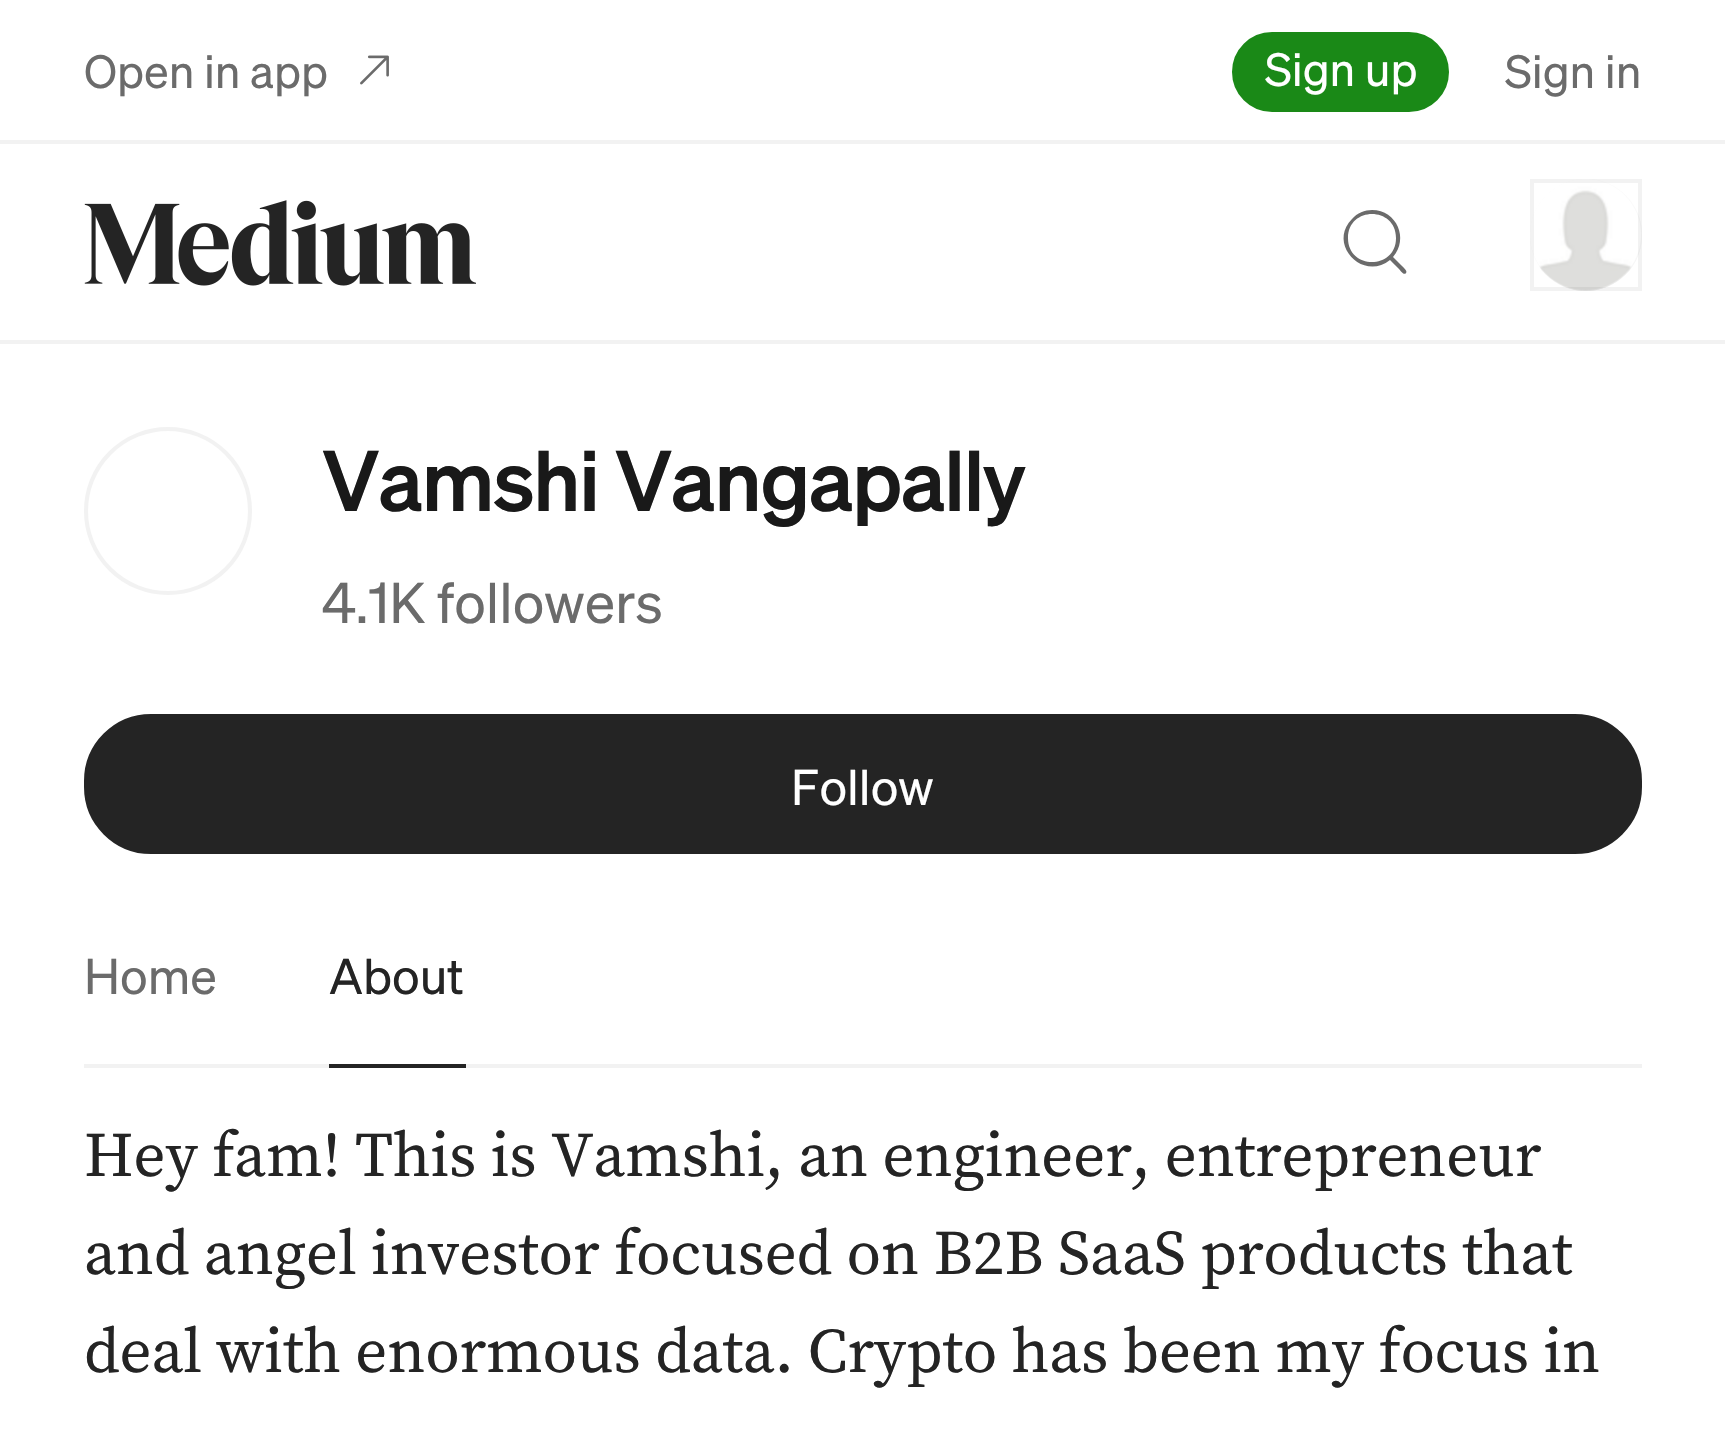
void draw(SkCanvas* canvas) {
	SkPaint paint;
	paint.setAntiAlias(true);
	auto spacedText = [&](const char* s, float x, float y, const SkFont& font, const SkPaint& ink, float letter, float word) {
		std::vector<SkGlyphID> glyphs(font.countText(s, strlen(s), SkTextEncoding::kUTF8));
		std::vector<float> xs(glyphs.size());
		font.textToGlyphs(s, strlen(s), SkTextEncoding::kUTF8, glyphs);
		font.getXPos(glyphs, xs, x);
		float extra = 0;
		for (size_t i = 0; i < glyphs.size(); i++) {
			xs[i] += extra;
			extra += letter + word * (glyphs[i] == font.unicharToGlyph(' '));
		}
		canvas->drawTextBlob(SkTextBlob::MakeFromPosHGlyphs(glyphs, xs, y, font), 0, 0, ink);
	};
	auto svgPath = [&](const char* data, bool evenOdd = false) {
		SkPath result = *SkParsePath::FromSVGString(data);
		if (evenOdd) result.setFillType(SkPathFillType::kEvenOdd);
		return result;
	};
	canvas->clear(0xffffffff);
	paint.setColor(0xfff2f2f2);
	canvas->drawRect(SkRect::MakeXYWH(0, 140, 1725, 4), paint);
	SkFont f1(fontMgr->matchFamilyStyle("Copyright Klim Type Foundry", SkFontStyle::Italic()), 45.5);
	f1.setSubpixel(true);
	paint.setColor(0xff6b6b6b);
	canvas->drawString("Open in app", 84, 88, f1, paint);
	canvas->drawImageRect(SkImages::DeferredFromEncodedData(SkData::MakeFromFileName("img1.png")), SkRect::MakeXYWH(360, 55, 29, 30), SkSamplingOptions());
	paint.setColor(0xff1a8917);
	canvas->drawRoundRect(SkRect::MakeXYWH(1234, 34, 213, 76), 38, 38, paint);
	paint.setStroke(true);
	paint.setStrokeWidth(4);
	canvas->drawRoundRect(SkRect::MakeXYWH(1234, 34, 213, 76), 38, 38, paint);
	paint.setStroke(false);
	paint.setColor(0xffffffff);
	canvas->drawString("Sign up", 1265, 86, f1, paint);
	paint.setColor(0xff6b6b6b);
	canvas->drawString("Sign in", 1505, 88, f1, paint);
	paint.setColor(0xfff2f2f2);
	canvas->drawRect(SkRect::MakeXYWH(0, 340, 1725, 4), paint);
	canvas->drawImageRect(SkImages::DeferredFromEncodedData(SkData::MakeFromFileName("img2.png")), SkRect::MakeXYWH(84, 200, 392, 86), SkSamplingOptions());
	paint.setColor(0xff6b6b6b);
	canvas->drawPath(svgPath("M1348 238C1348 206 1396 206 1396 238C1396 270 1348 270 1348 238M1372 210C1365 210 1357 213 1352 219C1327 244 1363 282 1390 260L1399 269C1400 270 1404 276 1406 273C1408 271 1403 267 1402 266L1393 257C1409 239 1397 210 1372 210Z", true), paint);
	paint.setColor(0xfff2f2f2);
	canvas->drawCircle(1586, 235, 56, paint);
	canvas->drawImageRect(SkImages::DeferredFromEncodedData(SkData::MakeFromFileName("img3.png")), SkRect::MakeXYWH(1530, 179, 112, 112), SkSamplingOptions());
	paint.setStroke(true);
	paint.setColor(0x0d000000);
	canvas->drawRect(SkRect::MakeXYWH(1532, 181, 108, 108), paint);
	paint.setStroke(false);
	paint.setColor(0xfff2f2f2);
	canvas->drawRect(SkRect::MakeXYWH(84, 1064, 1558, 4), paint);
	paint.setStroke(true);
	canvas->drawCircle(168, 511, 82, paint);
	SkFont f2(fontMgr->matchFamilyStyle("Copyright Klim Type Foundry", SkFontStyle(500, SkFontStyle::kNormal_Width, SkFontStyle::kItalic_Slant)), 84);
	f2.setSubpixel(true);
	paint.setStroke(false);
	paint.setColor(0xff191919);
	spacedText("Vamshi Vangapally", 322, 511, f2, paint, -1.3, 0);
	SkFont f3(fontMgr->matchFamilyStyle("Copyright Klim Type Foundry", SkFontStyle::Italic()), 56);
	f3.setSubpixel(true);
	paint.setColor(0xff6b6b6b);
	canvas->drawString("4.1K followers", 322, 623, f3, paint);
	paint.setColor(0xff242424);
	canvas->drawRoundRect(SkRect::MakeXYWH(86, 716, 1554, 136), 65, 65, paint);
	paint.setStroke(true);
	canvas->drawRoundRect(SkRect::MakeXYWH(86, 716, 1554, 136), 65, 65, paint);
	SkFont f4(fontMgr->matchFamilyStyle("Copyright Klim Type Foundry", SkFontStyle::Italic()), 49);
	f4.setSubpixel(true);
	paint.setStroke(false);
	paint.setColor(0xffffffff);
	canvas->drawString("Follow", 791, 805, f4, paint);
	paint.setColor(0xff6b6b6b);
	canvas->drawString("Home", 84, 994, f4, paint);
	paint.setColor(0xff242424);
	canvas->drawRect(SkRect::MakeXYWH(329, 1064, 137, 4), paint);
	canvas->drawString("About", 329, 994, f4, paint);
	SkFont f5(fontMgr->matchFamilyStyle("Source Serif Pro", SkFontStyle::Normal()), 63);
	f5.setSubpixel(true);
	spacedText("Hey fam! This is Vamshi, an engineer, entrepreneur", 84, 1176, f5, paint, -0.2, 0);
	spacedText("and angel investor focused on B2B SaaS products that", 84, 1274, f5, paint, -0.2, 0);
	spacedText("deal with enormous data. Crypto has been my focus in", 84, 1372, f5, paint, -0.2, 0);
}
